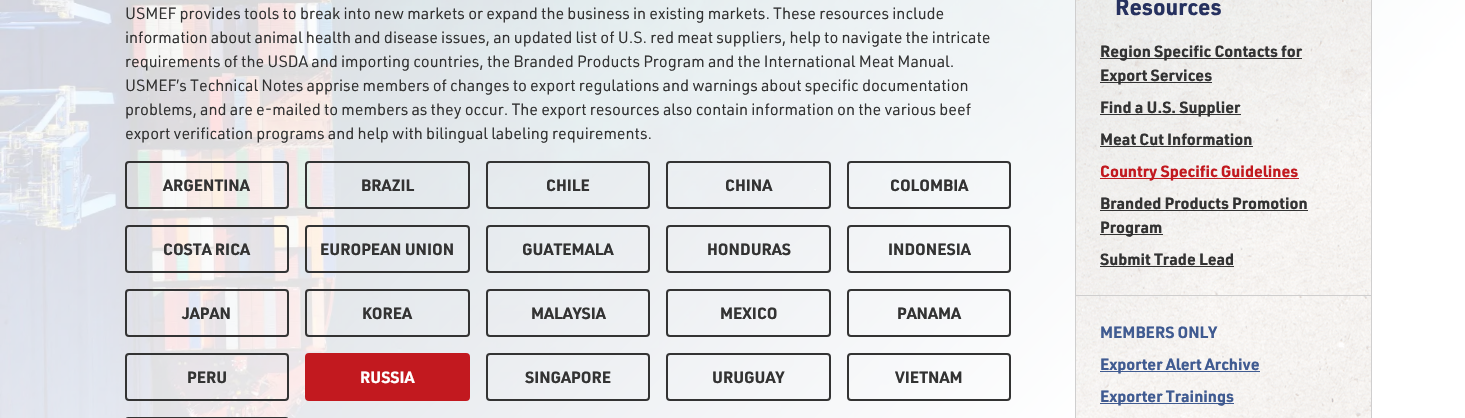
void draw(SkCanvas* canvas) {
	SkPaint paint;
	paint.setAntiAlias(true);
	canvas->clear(0xffffffff);
	canvas->drawImageRect(SkImages::DeferredFromEncodedData(SkData::MakeFromFileName("img1.png")), SkRect::MakeXYWH(0, 0, 1465, 418), SkSamplingOptions());
	{
		const SkColor colors[] = {0x00ffffff, 0xffffffff};
		const float stops[] = {0, 0.8};
		const SkPoint ends[] = {{199, -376}, {1266, 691}};
		paint.setShader(SkGradientShader::MakeLinear(ends, colors, stops, 2, SkTileMode::kClamp));
		paint.setAlpha(255);
	}
	canvas->drawRect(SkRect::MakeXYWH(0, 0, 1465, 418), paint);
	SkFont f1(fontMgr->matchFamilyStyle("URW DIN", SkFontStyle::Normal()), 16);
	f1.setSubpixel(true);
	paint.setShader(nullptr);
	paint.setColor(0xff333333);
	canvas->drawString("USMEF provides tools to break into new markets or expand the business in existing markets. These resources include", 125, 19, f1, paint);
	canvas->drawString("information about animal health and disease issues, an updated list of U.S. red meat suppliers, help to navigate the intricate", 125, 43, f1, paint);
	canvas->drawString("requirements of the USDA and importing countries, the Branded Products Program and the International Meat Manual.", 125, 67, f1, paint);
	canvas->drawString("USMEF’s Technical Notes apprise members of changes to export regulations and warnings about specific documentation", 125, 91, f1, paint);
	canvas->drawString("problems, and are e-mailed to members as they occur. The export resources also contain information on the various beef", 125, 115, f1, paint);
	canvas->drawString("export verification programs and help with bilingual labeling requirements.", 125, 139, f1, paint);
	paint.setStroke(true);
	paint.setStrokeWidth(2);
	canvas->drawRoundRect(SkRect::MakeXYWH(126, 162, 162, 46), 3, 3, paint);
	SkFont f2(fontMgr->matchFamilyStyle("URW DIN", SkFontStyle::Bold()), 16);
	f2.setSubpixel(true);
	paint.setStroke(false);
	canvas->drawString("ARGENTINA", 163, 191, f2, paint);
	paint.setStroke(true);
	canvas->drawRoundRect(SkRect::MakeXYWH(306, 162, 163, 46), 3, 3, paint);
	paint.setStroke(false);
	canvas->drawString("BRAZIL", 361, 191, f2, paint);
	paint.setStroke(true);
	canvas->drawRoundRect(SkRect::MakeXYWH(487, 162, 162, 46), 3, 3, paint);
	paint.setStroke(false);
	canvas->drawString("CHILE", 546, 191, f2, paint);
	paint.setStroke(true);
	canvas->drawRoundRect(SkRect::MakeXYWH(667, 162, 163, 46), 3, 3, paint);
	paint.setStroke(false);
	canvas->drawString("CHINA", 725, 191, f2, paint);
	paint.setStroke(true);
	canvas->drawRoundRect(SkRect::MakeXYWH(848, 162, 162, 46), 3, 3, paint);
	paint.setStroke(false);
	canvas->drawString("COLOMBIA", 890, 191, f2, paint);
	paint.setStroke(true);
	canvas->drawRoundRect(SkRect::MakeXYWH(126, 226, 162, 46), 3, 3, paint);
	paint.setStroke(false);
	canvas->drawString("COSTA RICA", 163, 255, f2, paint);
	paint.setStroke(true);
	canvas->drawRoundRect(SkRect::MakeXYWH(306, 226, 163, 46), 3, 3, paint);
	paint.setStroke(false);
	canvas->drawString("EUROPEAN UNION", 320, 255, f2, paint);
	paint.setStroke(true);
	canvas->drawRoundRect(SkRect::MakeXYWH(487, 226, 162, 46), 3, 3, paint);
	paint.setStroke(false);
	canvas->drawString("GUATEMALA", 522, 255, f2, paint);
	paint.setStroke(true);
	canvas->drawRoundRect(SkRect::MakeXYWH(667, 226, 163, 46), 3, 3, paint);
	paint.setStroke(false);
	canvas->drawString("HONDURAS", 707, 255, f2, paint);
	paint.setStroke(true);
	canvas->drawRoundRect(SkRect::MakeXYWH(848, 226, 162, 46), 3, 3, paint);
	paint.setStroke(false);
	canvas->drawString("INDONESIA", 888, 255, f2, paint);
	paint.setStroke(true);
	canvas->drawRoundRect(SkRect::MakeXYWH(126, 290, 162, 46), 3, 3, paint);
	paint.setStroke(false);
	canvas->drawString("JAPAN", 182, 319, f2, paint);
	paint.setStroke(true);
	canvas->drawRoundRect(SkRect::MakeXYWH(306, 290, 163, 46), 3, 3, paint);
	paint.setStroke(false);
	canvas->drawString("KOREA", 362, 319, f2, paint);
	paint.setStroke(true);
	canvas->drawRoundRect(SkRect::MakeXYWH(487, 290, 162, 46), 3, 3, paint);
	paint.setStroke(false);
	canvas->drawString("MALAYSIA", 531, 319, f2, paint);
	paint.setStroke(true);
	canvas->drawRoundRect(SkRect::MakeXYWH(667, 290, 163, 46), 3, 3, paint);
	paint.setStroke(false);
	canvas->drawString("MEXICO", 720, 319, f2, paint);
	paint.setStroke(true);
	canvas->drawRoundRect(SkRect::MakeXYWH(848, 290, 162, 46), 3, 3, paint);
	paint.setStroke(false);
	canvas->drawString("PANAMA", 897, 319, f2, paint);
	paint.setStroke(true);
	canvas->drawRoundRect(SkRect::MakeXYWH(126, 354, 162, 46), 3, 3, paint);
	paint.setStroke(false);
	canvas->drawString("PERU", 187, 383, f2, paint);
	paint.setColor(0xffc2191f);
	canvas->drawRoundRect(SkRect::MakeXYWH(306, 354, 163, 46), 3, 3, paint);
	paint.setStroke(true);
	canvas->drawRoundRect(SkRect::MakeXYWH(306, 354, 163, 46), 3, 3, paint);
	paint.setStroke(false);
	paint.setColor(0xffffffff);
	canvas->drawString("RUSSIA", 360, 383, f2, paint);
	paint.setStroke(true);
	paint.setColor(0xff333333);
	canvas->drawRoundRect(SkRect::MakeXYWH(487, 354, 162, 46), 3, 3, paint);
	paint.setStroke(false);
	canvas->drawString("SINGAPORE", 525, 383, f2, paint);
	paint.setStroke(true);
	canvas->drawRoundRect(SkRect::MakeXYWH(667, 354, 163, 46), 3, 3, paint);
	paint.setStroke(false);
	canvas->drawString("URUGUAY", 712, 383, f2, paint);
	paint.setStroke(true);
	canvas->drawRoundRect(SkRect::MakeXYWH(848, 354, 162, 46), 3, 3, paint);
	paint.setStroke(false);
	canvas->drawString("VIETNAM", 895, 383, f2, paint);
	paint.setStroke(true);
	canvas->drawRoundRect(SkRect::MakeXYWH(126, 418, 162, 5), 3, 3, paint);
	canvas->drawImageRect(SkImages::DeferredFromEncodedData(SkData::MakeFromFileName("img2.png")), SkRect::MakeXYWH(1076, 0, 295, 418), SkSamplingOptions());
	paint.setStrokeWidth(1);
	paint.setColor(0xffcfcece);
	canvas->drawRect(SkRect::MakeXYWH(1075.5, -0.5, 296, 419), paint);
	SkFont f3(fontMgr->matchFamilyStyle("URW DIN", SkFontStyle::Bold()), 22.5);
	f3.setSubpixel(true);
	paint.setStroke(false);
	paint.setColor(0xff26315f);
	canvas->drawString("Resources", 1115, 15, f3, paint);
	paint.setColor(0xff333333);
	canvas->drawRect(SkRect::MakeXYWH(1100, 58, 202, 1), paint);
	canvas->drawString("Region Specific Contacts for", 1100, 57, f2, paint);
	canvas->drawRect(SkRect::MakeXYWH(1100, 82, 112, 1), paint);
	canvas->drawString("Export Services", 1100, 81, f2, paint);
	canvas->drawRect(SkRect::MakeXYWH(1100, 114, 141, 1), paint);
	canvas->drawString("Find a U.S. Supplier", 1100, 113, f2, paint);
	canvas->drawString("Meat Cut Information", 1100, 145, f2, paint);
	canvas->drawRect(SkRect::MakeXYWH(1100, 146, 153, 1), paint);
	paint.setColor(0xffc2191f);
	canvas->drawRect(SkRect::MakeXYWH(1100, 178, 199, 1), paint);
	canvas->drawString("Country Specific Guidelines", 1100, 177, f2, paint);
	paint.setColor(0xff333333);
	canvas->drawString("Branded Products Promotion", 1100, 209, f2, paint);
	canvas->drawRect(SkRect::MakeXYWH(1100, 210, 208, 1), paint);
	canvas->drawRect(SkRect::MakeXYWH(1100, 234, 63, 1), paint);
	canvas->drawString("Program", 1100, 233, f2, paint);
	canvas->drawString("Submit Trade Lead", 1100, 265, f2, paint);
	canvas->drawRect(SkRect::MakeXYWH(1100, 266, 134, 1), paint);
	paint.setColor(0xffcfcece);
	canvas->drawRect(SkRect::MakeXYWH(1076, 295, 295, 1), paint);
	paint.setColor(0xff405b91);
	canvas->drawString("MEMBERS ONLY", 1100, 338, f2, paint);
	canvas->drawRect(SkRect::MakeXYWH(1100, 371, 160, 1), paint);
	canvas->drawString("Exporter Alert Archive", 1100, 370, f2, paint);
	canvas->drawRect(SkRect::MakeXYWH(1100, 403, 134, 1), paint);
	canvas->drawString("Exporter Trainings", 1100, 402, f2, paint);
}
